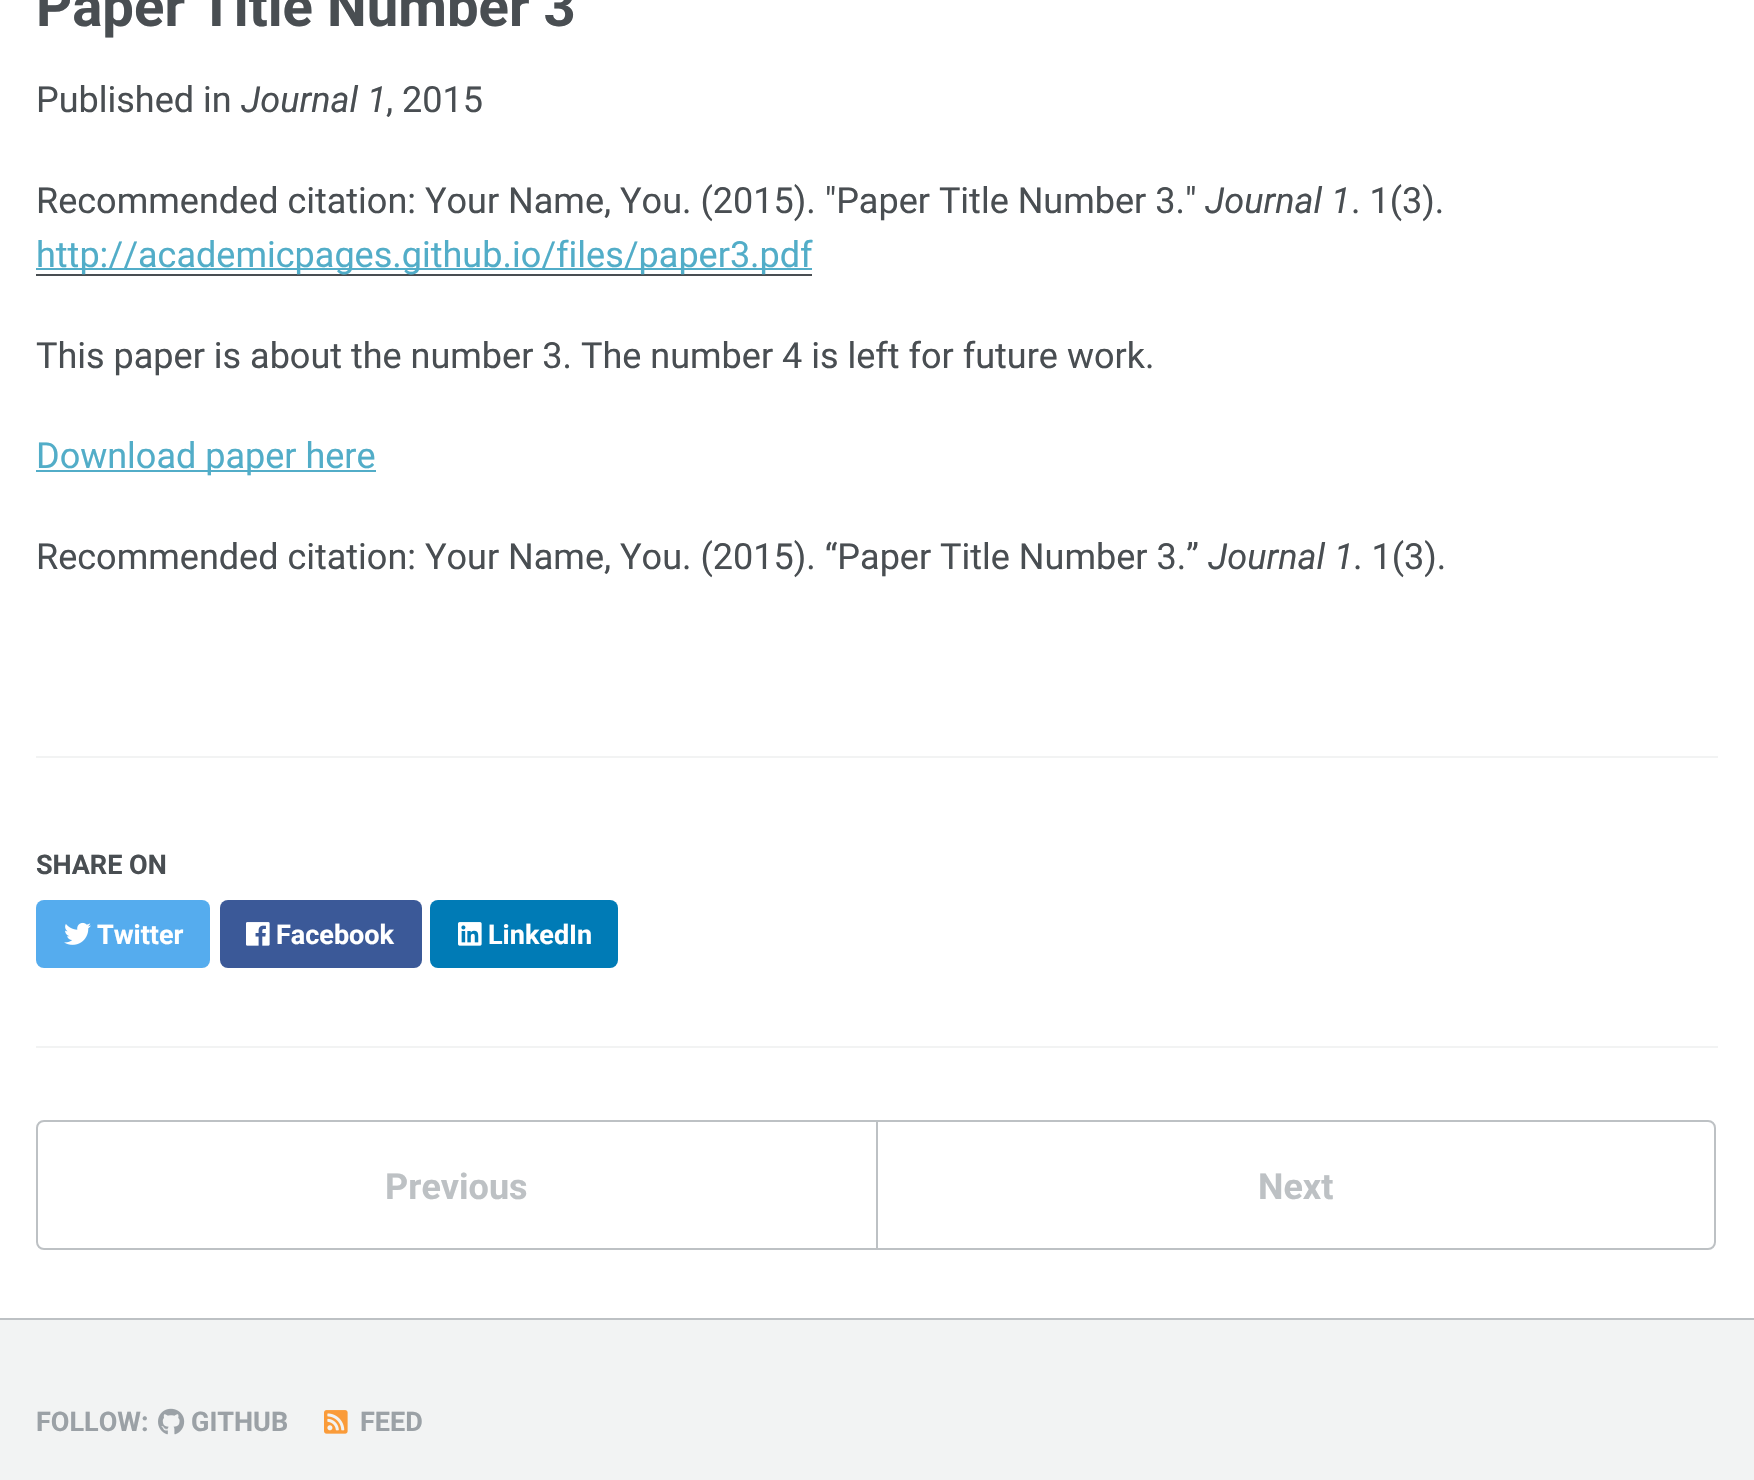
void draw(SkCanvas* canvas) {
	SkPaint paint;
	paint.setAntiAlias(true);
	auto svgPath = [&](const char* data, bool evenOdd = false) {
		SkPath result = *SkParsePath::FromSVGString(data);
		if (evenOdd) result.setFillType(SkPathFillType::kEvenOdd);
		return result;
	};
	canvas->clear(0xffffffff);
	SkFont f1(fontMgr->matchFamilyStyle("Roboto", SkFontStyle::Bold()), 56.25);
	f1.setSubpixel(true);
	paint.setColor(0xff494e52);
	canvas->drawString("Paper Title Number 3", 36, 26, f1, paint);
	SkFont f2(fontMgr->matchFamilyStyle("Roboto", SkFontStyle::Normal()), 36);
	f2.setSubpixel(true);
	canvas->drawString("Published in", 36, 112, f2, paint);
	SkFont f3(fontMgr->matchFamilyStyle("Roboto", SkFontStyle::Italic()), 36);
	f3.setSubpixel(true);
	canvas->drawString("Journal 1", 241, 112, f3, paint);
	canvas->drawString(", 2015", 386, 112, f2, paint);
	canvas->drawString("Recommended citation: Your Name, You. (2015). \"Paper Title Number 3.\"", 36, 213, f2, paint);
	canvas->drawString("Journal 1", 1205, 213, f3, paint);
	canvas->drawString(". 1(3).", 1351, 213, f2, paint);
	canvas->drawRect(SkRect::MakeXYWH(36, 274, 776, 2), paint);
	paint.setColor(0xff52adc8);
	canvas->drawRect(SkRect::MakeXYWH(36, 268, 776, 2), paint);
	canvas->drawString("http://academicpages.github.io/files/paper3.pdf", 36, 267, f2, paint);
	paint.setColor(0xff494e52);
	canvas->drawString("This paper is about the number 3. The number 4 is left for future work.", 36, 368, f2, paint);
	paint.setColor(0xff52adc8);
	canvas->drawRect(SkRect::MakeXYWH(36, 470, 340, 2), paint);
	canvas->drawString("Download paper here", 36, 468, f2, paint);
	paint.setColor(0xff494e52);
	canvas->drawString("Recommended citation: Your Name, You. (2015). “Paper Title Number 3.”", 36, 569, f2, paint);
	canvas->drawString("Journal 1", 1208, 569, f3, paint);
	canvas->drawString(". 1(3).", 1353, 569, f2, paint);
	paint.setColor(0xfff2f3f3);
	canvas->drawRect(SkRect::MakeXYWH(36, 756, 1682, 2), paint);
	SkFont f4(fontMgr->matchFamilyStyle("Roboto", SkFontStyle::Bold()), 27);
	f4.setSubpixel(true);
	paint.setColor(0xff494e52);
	canvas->drawString("SHARE ON", 36, 874, f4, paint);
	paint.setColor(0xff55acee);
	canvas->drawRoundRect(SkRect::MakeXYWH(36, 900, 174, 68), 8, 8, paint);
	canvas->drawImageRect(SkImages::DeferredFromEncodedData(SkData::MakeFromFileName("img1.png")), SkRect::MakeXYWH(64, 922, 27, 23), SkSamplingOptions());
	paint.setColor(0xffffffff);
	canvas->drawString("Twitter", 97, 944, f4, paint);
	paint.setColor(0xff3b5998);
	canvas->drawRoundRect(SkRect::MakeXYWH(220, 900, 202, 68), 8, 8, paint);
	canvas->drawImageRect(SkImages::DeferredFromEncodedData(SkData::MakeFromFileName("img2.png")), SkRect::MakeXYWH(246, 922, 24, 24), SkSamplingOptions());
	paint.setColor(0xffffffff);
	canvas->drawString("Facebook", 276, 944, f4, paint);
	paint.setColor(0xff007bb6);
	canvas->drawRoundRect(SkRect::MakeXYWH(430, 900, 188, 68), 8, 8, paint);
	canvas->drawImageRect(SkImages::DeferredFromEncodedData(SkData::MakeFromFileName("img3.png")), SkRect::MakeXYWH(458, 922, 24, 24), SkSamplingOptions());
	paint.setColor(0xffffffff);
	canvas->drawString("LinkedIn", 488, 944, f4, paint);
	paint.setColor(0xfff2f3f3);
	canvas->drawRect(SkRect::MakeXYWH(36, 1046, 1682, 2), paint);
	paint.setStroke(true);
	paint.setStrokeWidth(2);
	paint.setColor(0xffbdc1c4);
	canvas->drawPath(svgPath("M44 1121H877V1249H44C40 1249 37 1246 37 1242V1128C37 1124 40 1121 44 1121Z"), paint);
	SkFont f5(fontMgr->matchFamilyStyle("Roboto", SkFontStyle::Bold()), 36);
	f5.setSubpixel(true);
	paint.setStroke(false);
	canvas->drawString("Previous", 385, 1199, f5, paint);
	paint.setStroke(true);
	canvas->drawPath(svgPath("M877 1121H1708C1712 1121 1715 1124 1715 1128V1242C1715 1246 1712 1249 1708 1249H877Z"), paint);
	paint.setStroke(false);
	canvas->drawString("Next", 1258, 1199, f5, paint);
	paint.setColor(0xfff2f3f3);
	canvas->drawRect(SkRect::MakeXYWH(0, 1320, 1754, 160), paint);
	paint.setColor(0xffbdc1c4);
	canvas->drawRect(SkRect::MakeXYWH(0, 1318, 1754, 2), paint);
	paint.setColor(0xff9ba1a6);
	canvas->drawString("FOLLOW:", 36, 1431, f4, paint);
	canvas->drawImageRect(SkImages::DeferredFromEncodedData(SkData::MakeFromFileName("img4.png")), SkRect::MakeXYWH(158, 1408, 27, 27), SkSamplingOptions());
	canvas->drawString("GITHUB", 191, 1431, f4, paint);
	canvas->drawImageRect(SkImages::DeferredFromEncodedData(SkData::MakeFromFileName("img5.png")), SkRect::MakeXYWH(324, 1410, 24, 24), SkSamplingOptions());
	canvas->drawString("FEED", 360, 1431, f4, paint);
}
